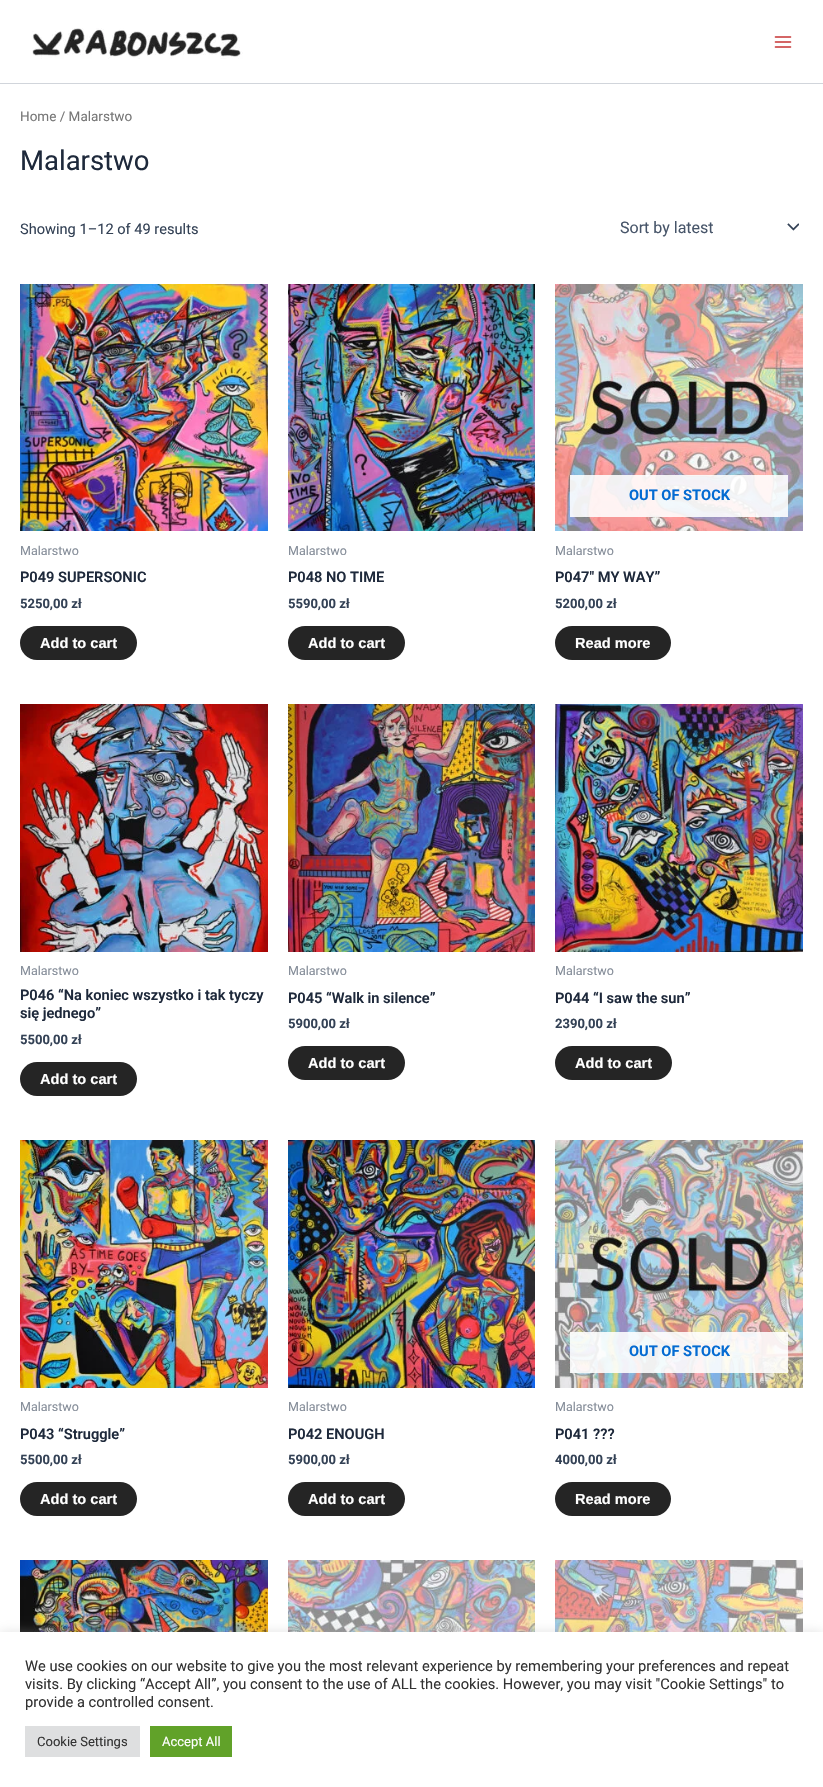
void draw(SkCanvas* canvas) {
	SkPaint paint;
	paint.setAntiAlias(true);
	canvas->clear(0xffffffff);
	paint.setColor(0xffd1d5db);
	canvas->drawRect(SkRect::MakeXYWH(0, 83, 823, 1), paint);
	canvas->drawImageRect(SkImages::DeferredFromEncodedData(SkData::MakeFromFileName("img1.png")), SkRect::MakeXYWH(32, 28, 211, 31), SkSamplingOptions());
	canvas->drawImageRect(SkImages::DeferredFromEncodedData(SkData::MakeFromFileName("img2.png")), SkRect::MakeXYWH(774, 36, 18, 12), SkSamplingOptions());
	SkFont f1(fontMgr->matchFamilyStyle("Roboto", SkFontStyle::Normal()), 13.5);
	f1.setSubpixel(true);
	paint.setColor(0xff777777);
	canvas->drawString("Home / Malarstwo", 20, 121, f1, paint);
	SkFont f2(fontMgr->matchFamilyStyle("Roboto", SkFontStyle::Normal()), 27.5);
	f2.setSubpixel(true);
	paint.setColor(0xff1e293b);
	canvas->drawString("Malarstwo", 20, 170, f2, paint);
	SkFont f3(fontMgr->matchFamilyStyle("Roboto", SkFontStyle::Normal()), 14.6);
	f3.setSubpixel(true);
	paint.setColor(0xff334155);
	canvas->drawString("Showing 1–12 of 49 results", 20, 234, f3, paint);
	canvas->drawImageRect(SkImages::DeferredFromEncodedData(SkData::MakeFromFileName("img3.png")), SkRect::MakeXYWH(787, 223, 12, 8), SkSamplingOptions());
	SkFont f4(fontMgr->matchFamilyStyle("Roboto", SkFontStyle::Normal()), 16);
	f4.setSubpixel(true);
	paint.setColor(0xff475569);
	canvas->drawString("Sort by latest", 620, 233, f4, paint);
	canvas->drawImageRect(SkImages::DeferredFromEncodedData(SkData::MakeFromFileName("img4.png")), SkRect::MakeXYWH(20, 284, 248, 247), SkSamplingOptions());
	SkFont f5(fontMgr->matchFamilyStyle("Roboto", SkFontStyle::Normal()), 12.5);
	f5.setSubpixel(true);
	paint.setColor(0xff858d99);
	canvas->drawString("Malarstwo", 20, 555, f5, paint);
	SkFont f6(fontMgr->matchFamilyStyle("Roboto", SkFontStyle(600, SkFontStyle::kNormal_Width, SkFontStyle::kUpright_Slant)), 14.6);
	f6.setSubpixel(true);
	paint.setColor(0xff1e293b);
	canvas->drawString("P049 SUPERSONIC", 20, 582, f6, paint);
	SkFont f7(fontMgr->matchFamilyStyle("Roboto", SkFontStyle::Bold()), 13);
	f7.setSubpixel(true);
	paint.setColor(0xff334155);
	canvas->drawString("5250,00 zł", 20, 608, f7, paint);
	paint.setColor(0xff252525);
	canvas->drawRoundRect(SkRect::MakeXYWH(20, 626, 117, 34), 17, 17, paint);
	SkFont f8(fontMgr->matchFamilyStyle("Liberation Sans", SkFontStyle::Bold()), 14.6);
	f8.setSubpixel(true);
	paint.setColor(0xffffffff);
	canvas->drawString("Add to cart", 40, 648, f8, paint);
	canvas->drawImageRect(SkImages::DeferredFromEncodedData(SkData::MakeFromFileName("img5.png")), SkRect::MakeXYWH(288, 284, 247, 247), SkSamplingOptions());
	paint.setColor(0xff858d99);
	canvas->drawString("Malarstwo", 288, 555, f5, paint);
	paint.setColor(0xff1e293b);
	canvas->drawString("P048 NO TIME", 288, 582, f6, paint);
	paint.setColor(0xff334155);
	canvas->drawString("5590,00 zł", 288, 608, f7, paint);
	paint.setColor(0xff252525);
	canvas->drawRoundRect(SkRect::MakeXYWH(288, 626, 117, 34), 17, 17, paint);
	paint.setColor(0xffffffff);
	canvas->drawString("Add to cart", 308, 648, f8, paint);
	canvas->drawImageRect(SkImages::DeferredFromEncodedData(SkData::MakeFromFileName("img6.png")), SkRect::MakeXYWH(555, 284, 248, 247), SkSamplingOptions());
	paint.setColor(0xe0ffffff);
	canvas->drawRect(SkRect::MakeXYWH(570, 475, 218, 42), paint);
	SkFont f9(fontMgr->matchFamilyStyle("Roboto", SkFontStyle::Bold()), 14.6);
	f9.setSubpixel(true);
	paint.setColor(0xff046bd2);
	canvas->drawString("OUT OF STOCK", 629, 500, f9, paint);
	paint.setColor(0xff858d99);
	canvas->drawString("Malarstwo", 555, 555, f5, paint);
	paint.setColor(0xff1e293b);
	canvas->drawString("P047″ MY WAY”", 555, 582, f6, paint);
	paint.setColor(0xff334155);
	canvas->drawString("5200,00 zł", 555, 608, f7, paint);
	paint.setColor(0xff252525);
	canvas->drawRoundRect(SkRect::MakeXYWH(555, 626, 116, 34), 17, 17, paint);
	paint.setColor(0xffffffff);
	canvas->drawString("Read more", 575, 648, f8, paint);
	canvas->drawImageRect(SkImages::DeferredFromEncodedData(SkData::MakeFromFileName("img7.png")), SkRect::MakeXYWH(20, 704, 248, 248), SkSamplingOptions());
	paint.setColor(0xff858d99);
	canvas->drawString("Malarstwo", 20, 975, f5, paint);
	paint.setColor(0xff1e293b);
	canvas->drawString("P046 “Na koniec wszystko i tak tyczy", 20, 1000, f6, paint);
	canvas->drawString("się jednego”", 20, 1018, f6, paint);
	paint.setColor(0xff334155);
	canvas->drawString("5500,00 zł", 20, 1044, f7, paint);
	paint.setColor(0xff252525);
	canvas->drawRoundRect(SkRect::MakeXYWH(20, 1062, 117, 34), 17, 17, paint);
	paint.setColor(0xffffffff);
	canvas->drawString("Add to cart", 40, 1084, f8, paint);
	canvas->drawImageRect(SkImages::DeferredFromEncodedData(SkData::MakeFromFileName("img8.png")), SkRect::MakeXYWH(288, 704, 247, 248), SkSamplingOptions());
	paint.setColor(0xff858d99);
	canvas->drawString("Malarstwo", 288, 975, f5, paint);
	paint.setColor(0xff1e293b);
	canvas->drawString("P045 “Walk in silence”", 288, 1003, f6, paint);
	paint.setColor(0xff334155);
	canvas->drawString("5900,00 zł", 288, 1028, f7, paint);
	paint.setColor(0xff252525);
	canvas->drawRoundRect(SkRect::MakeXYWH(288, 1046, 117, 34), 17, 17, paint);
	paint.setColor(0xffffffff);
	canvas->drawString("Add to cart", 308, 1068, f8, paint);
	canvas->drawImageRect(SkImages::DeferredFromEncodedData(SkData::MakeFromFileName("img9.png")), SkRect::MakeXYWH(555, 704, 248, 248), SkSamplingOptions());
	paint.setColor(0xff858d99);
	canvas->drawString("Malarstwo", 555, 975, f5, paint);
	paint.setColor(0xff1e293b);
	canvas->drawString("P044 “I saw the sun”", 555, 1003, f6, paint);
	paint.setColor(0xff334155);
	canvas->drawString("2390,00 zł", 555, 1028, f7, paint);
	paint.setColor(0xff252525);
	canvas->drawRoundRect(SkRect::MakeXYWH(555, 1046, 117, 34), 17, 17, paint);
	paint.setColor(0xffffffff);
	canvas->drawString("Add to cart", 575, 1068, f8, paint);
	canvas->drawImageRect(SkImages::DeferredFromEncodedData(SkData::MakeFromFileName("img10.png")), SkRect::MakeXYWH(20, 1140, 248, 248), SkSamplingOptions());
	paint.setColor(0xff858d99);
	canvas->drawString("Malarstwo", 20, 1411, f5, paint);
	paint.setColor(0xff1e293b);
	canvas->drawString("P043 “Struggle”", 20, 1439, f6, paint);
	paint.setColor(0xff334155);
	canvas->drawString("5500,00 zł", 20, 1464, f7, paint);
	paint.setColor(0xff252525);
	canvas->drawRoundRect(SkRect::MakeXYWH(20, 1482, 117, 34), 17, 17, paint);
	paint.setColor(0xffffffff);
	canvas->drawString("Add to cart", 40, 1504, f8, paint);
	canvas->drawImageRect(SkImages::DeferredFromEncodedData(SkData::MakeFromFileName("img11.png")), SkRect::MakeXYWH(288, 1140, 247, 248), SkSamplingOptions());
	paint.setColor(0xff858d99);
	canvas->drawString("Malarstwo", 288, 1411, f5, paint);
	paint.setColor(0xff1e293b);
	canvas->drawString("P042 ENOUGH", 288, 1439, f6, paint);
	paint.setColor(0xff334155);
	canvas->drawString("5900,00 zł", 288, 1464, f7, paint);
	paint.setColor(0xff252525);
	canvas->drawRoundRect(SkRect::MakeXYWH(288, 1482, 117, 34), 17, 17, paint);
	paint.setColor(0xffffffff);
	canvas->drawString("Add to cart", 308, 1504, f8, paint);
	canvas->drawImageRect(SkImages::DeferredFromEncodedData(SkData::MakeFromFileName("img12.png")), SkRect::MakeXYWH(555, 1140, 248, 248), SkSamplingOptions());
	paint.setColor(0xe0ffffff);
	canvas->drawRect(SkRect::MakeXYWH(570, 1332, 218, 41), paint);
	paint.setColor(0xff046bd2);
	canvas->drawString("OUT OF STOCK", 629, 1356, f9, paint);
	paint.setColor(0xff858d99);
	canvas->drawString("Malarstwo", 555, 1411, f5, paint);
	paint.setColor(0xff1e293b);
	canvas->drawString("P041 ?\077?", 555, 1439, f6, paint);
	paint.setColor(0xff334155);
	canvas->drawString("4000,00 zł", 555, 1464, f7, paint);
	paint.setColor(0xff252525);
	canvas->drawRoundRect(SkRect::MakeXYWH(555, 1482, 116, 34), 17, 17, paint);
	paint.setColor(0xffffffff);
	canvas->drawString("Read more", 575, 1504, f8, paint);
	canvas->drawImageRect(SkImages::DeferredFromEncodedData(SkData::MakeFromFileName("img13.png")), SkRect::MakeXYWH(20, 1560, 248, 72), SkSamplingOptions());
	canvas->drawImageRect(SkImages::DeferredFromEncodedData(SkData::MakeFromFileName("img14.png")), SkRect::MakeXYWH(288, 1560, 247, 72), SkSamplingOptions());
	canvas->drawImageRect(SkImages::DeferredFromEncodedData(SkData::MakeFromFileName("img15.png")), SkRect::MakeXYWH(555, 1560, 248, 72), SkSamplingOptions());
	paint.setColor(0x4dacabab);
	paint.setMaskFilter(SkMaskFilter::MakeBlur(kNormal_SkBlurStyle, 5));
	canvas->drawRect(SkRect::MakeXYWH(0, 1631, 823, 155), paint);
	paint.setMaskFilter(nullptr);
	paint.setColor(0xffffffff);
	canvas->drawRect(SkRect::MakeXYWH(0, 1632, 823, 155), paint);
	SkFont f10(fontMgr->matchFamilyStyle("Roboto", SkFontStyle::Normal()), 14.67);
	f10.setSubpixel(true);
	paint.setColor(0xff333333);
	canvas->drawString("We use cookies on our website to give you the most relevant experience by remembering your preferences and repeat", 25, 1671, f10, paint);
	canvas->drawString("visits. By clicking “Accept All”, you consent to the use of ALL the cookies. However, you may visit \"Cookie Settings\" to", 25, 1689, f10, paint);
	canvas->drawString("provide a controlled consent.", 25, 1707, f10, paint);
	paint.setColor(0xffdedfe0);
	canvas->drawRect(SkRect::MakeXYWH(25, 1726, 115, 31), paint);
	SkFont f11(fontMgr->matchFamilyStyle("Roboto", SkFontStyle::Normal()), 13);
	f11.setSubpixel(true);
	paint.setColor(0xff333333);
	canvas->drawString("Cookie Settings", 37, 1746, f11, paint);
	paint.setColor(0xff61a229);
	canvas->drawRect(SkRect::MakeXYWH(150, 1726, 82, 31), paint);
	paint.setColor(0xffffffff);
	canvas->drawString("Accept All", 162, 1746, f11, paint);
}
